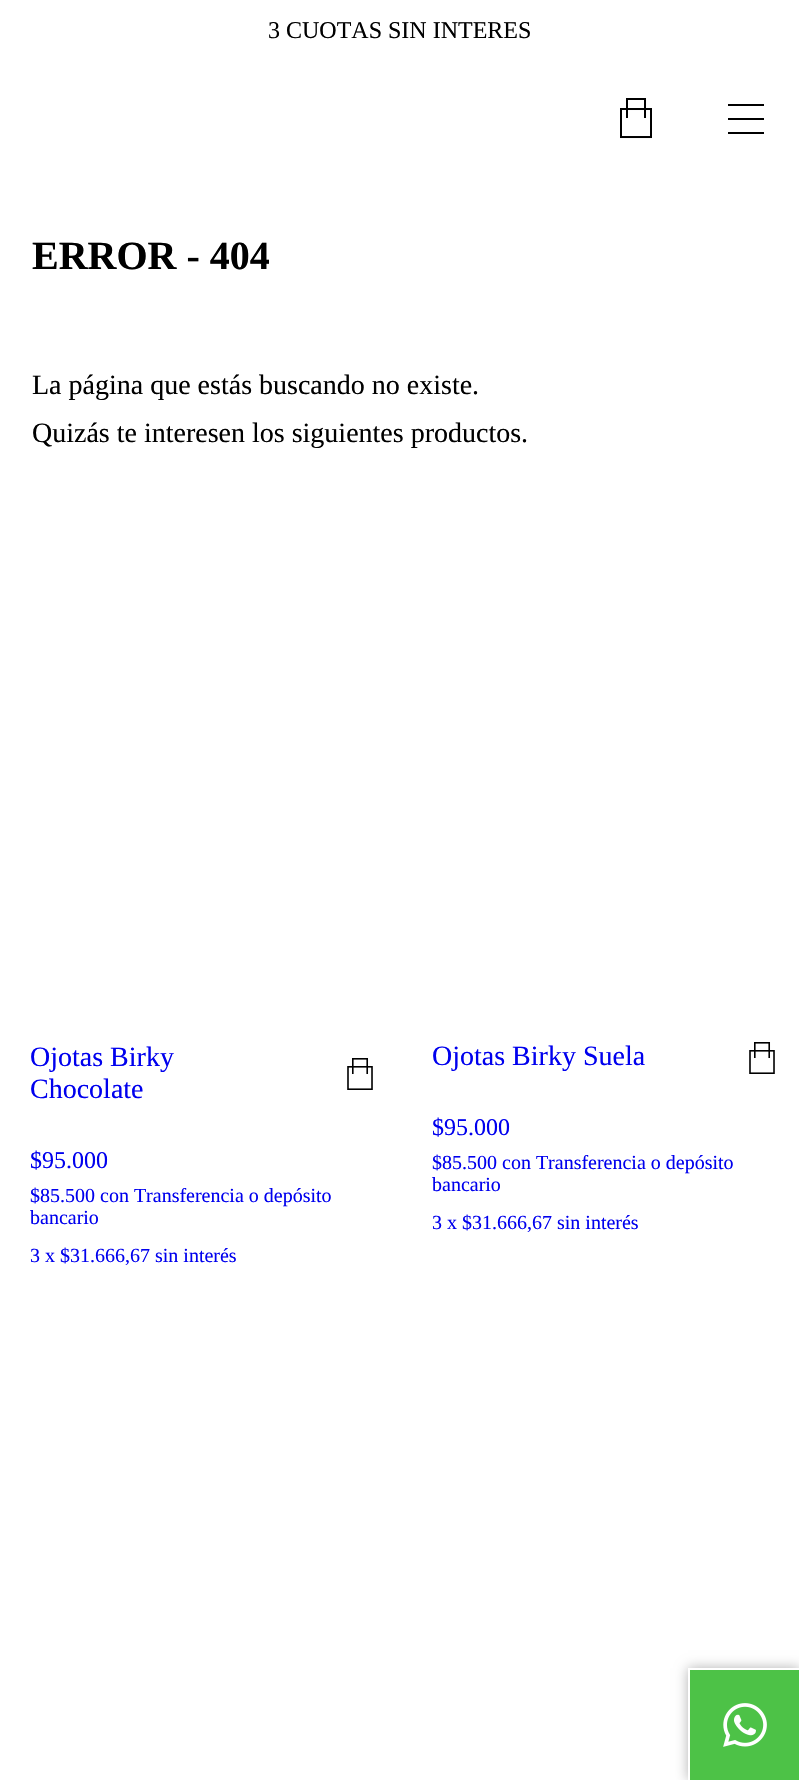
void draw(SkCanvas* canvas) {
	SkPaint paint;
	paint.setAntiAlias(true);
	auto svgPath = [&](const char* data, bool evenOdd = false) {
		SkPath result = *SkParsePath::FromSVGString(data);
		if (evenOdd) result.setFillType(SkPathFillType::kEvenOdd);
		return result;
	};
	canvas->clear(0xffffffff);
	SkFont f1(fontMgr->matchFamilyStyle("Liberation Serif", SkFontStyle::Normal()), 24);
	f1.setSubpixel(true);
	paint.setColor(0xff000000);
	canvas->drawString("3 CUOTAS SIN INTERES", 268, 38, f1, paint);
	canvas->drawImageRect(SkImages::DeferredFromEncodedData(SkData::MakeFromFileName("img1.png")), SkRect::MakeXYWH(620, 98, 32, 41), SkSamplingOptions());
	canvas->drawPath(svgPath("M764 106H728V104H764ZM764 120H728V118H764ZM764 134H728V132H764Z"), paint);
	SkFont f2(fontMgr->matchFamilyStyle("Liberation Serif", SkFontStyle::Bold()), 40);
	f2.setSubpixel(true);
	canvas->drawString("ERROR - 404", 32, 269, f2, paint);
	SkFont f3(fontMgr->matchFamilyStyle("Liberation Serif", SkFontStyle::Normal()), 28);
	f3.setSubpixel(true);
	canvas->drawString("La página que estás buscando no existe.", 32, 394, f3, paint);
	canvas->drawString("Quizás te interesen los siguientes productos.", 32, 442, f3, paint);
	paint.setColor(0xff0000ee);
	canvas->drawString("Ojotas Birky", 30, 1066, f3, paint);
	canvas->drawString("Chocolate", 30, 1098, f3, paint);
	canvas->drawImageRect(SkImages::DeferredFromEncodedData(SkData::MakeFromFileName("img2.png")), SkRect::MakeXYWH(347, 1058, 26, 32), SkSamplingOptions());
	canvas->drawString("$95.000", 30, 1168, f1, paint);
	SkFont f4(fontMgr->matchFamilyStyle("Liberation Serif", SkFontStyle::Normal()), 20);
	f4.setSubpixel(true);
	canvas->drawString("$85.500 con Transferencia o depósito", 30, 1202, f4, paint);
	canvas->drawString("bancario", 30, 1224, f4, paint);
	canvas->drawString("3 x $31.666,67 sin interés", 30, 1262, f4, paint);
	canvas->drawString("Ojotas Birky Suela", 432, 1065, f3, paint);
	canvas->drawImageRect(SkImages::DeferredFromEncodedData(SkData::MakeFromFileName("img2.png")), SkRect::MakeXYWH(749, 1042, 26, 32), SkSamplingOptions());
	canvas->drawString("$95.000", 432, 1135, f1, paint);
	canvas->drawString("$85.500 con Transferencia o depósito", 432, 1169, f4, paint);
	canvas->drawString("bancario", 432, 1191, f4, paint);
	canvas->drawString("3 x $31.666,67 sin interés", 432, 1229, f4, paint);
	paint.setColor(0x4d000000);
	paint.setMaskFilter(SkMaskFilter::MakeBlur(kNormal_SkBlurStyle, 6));
	canvas->drawRect(SkRect::MakeXYWH(688, 1668, 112, 112), paint);
	paint.setMaskFilter(nullptr);
	paint.setColor(0xff4dc247);
	canvas->drawRect(SkRect::MakeXYWH(690, 1670, 109, 110), paint);
	paint.setColor(0xffffffff);
	canvas->drawRect(SkRect::MakeXYWH(688, 1668, 111, 2), paint);
	canvas->drawRect(SkRect::MakeXYWH(688, 1668, 2, 112), paint);
	canvas->drawImageRect(SkImages::DeferredFromEncodedData(SkData::MakeFromFileName("img3.png")), SkRect::MakeXYWH(723, 1703, 44, 44), SkSamplingOptions());
}
